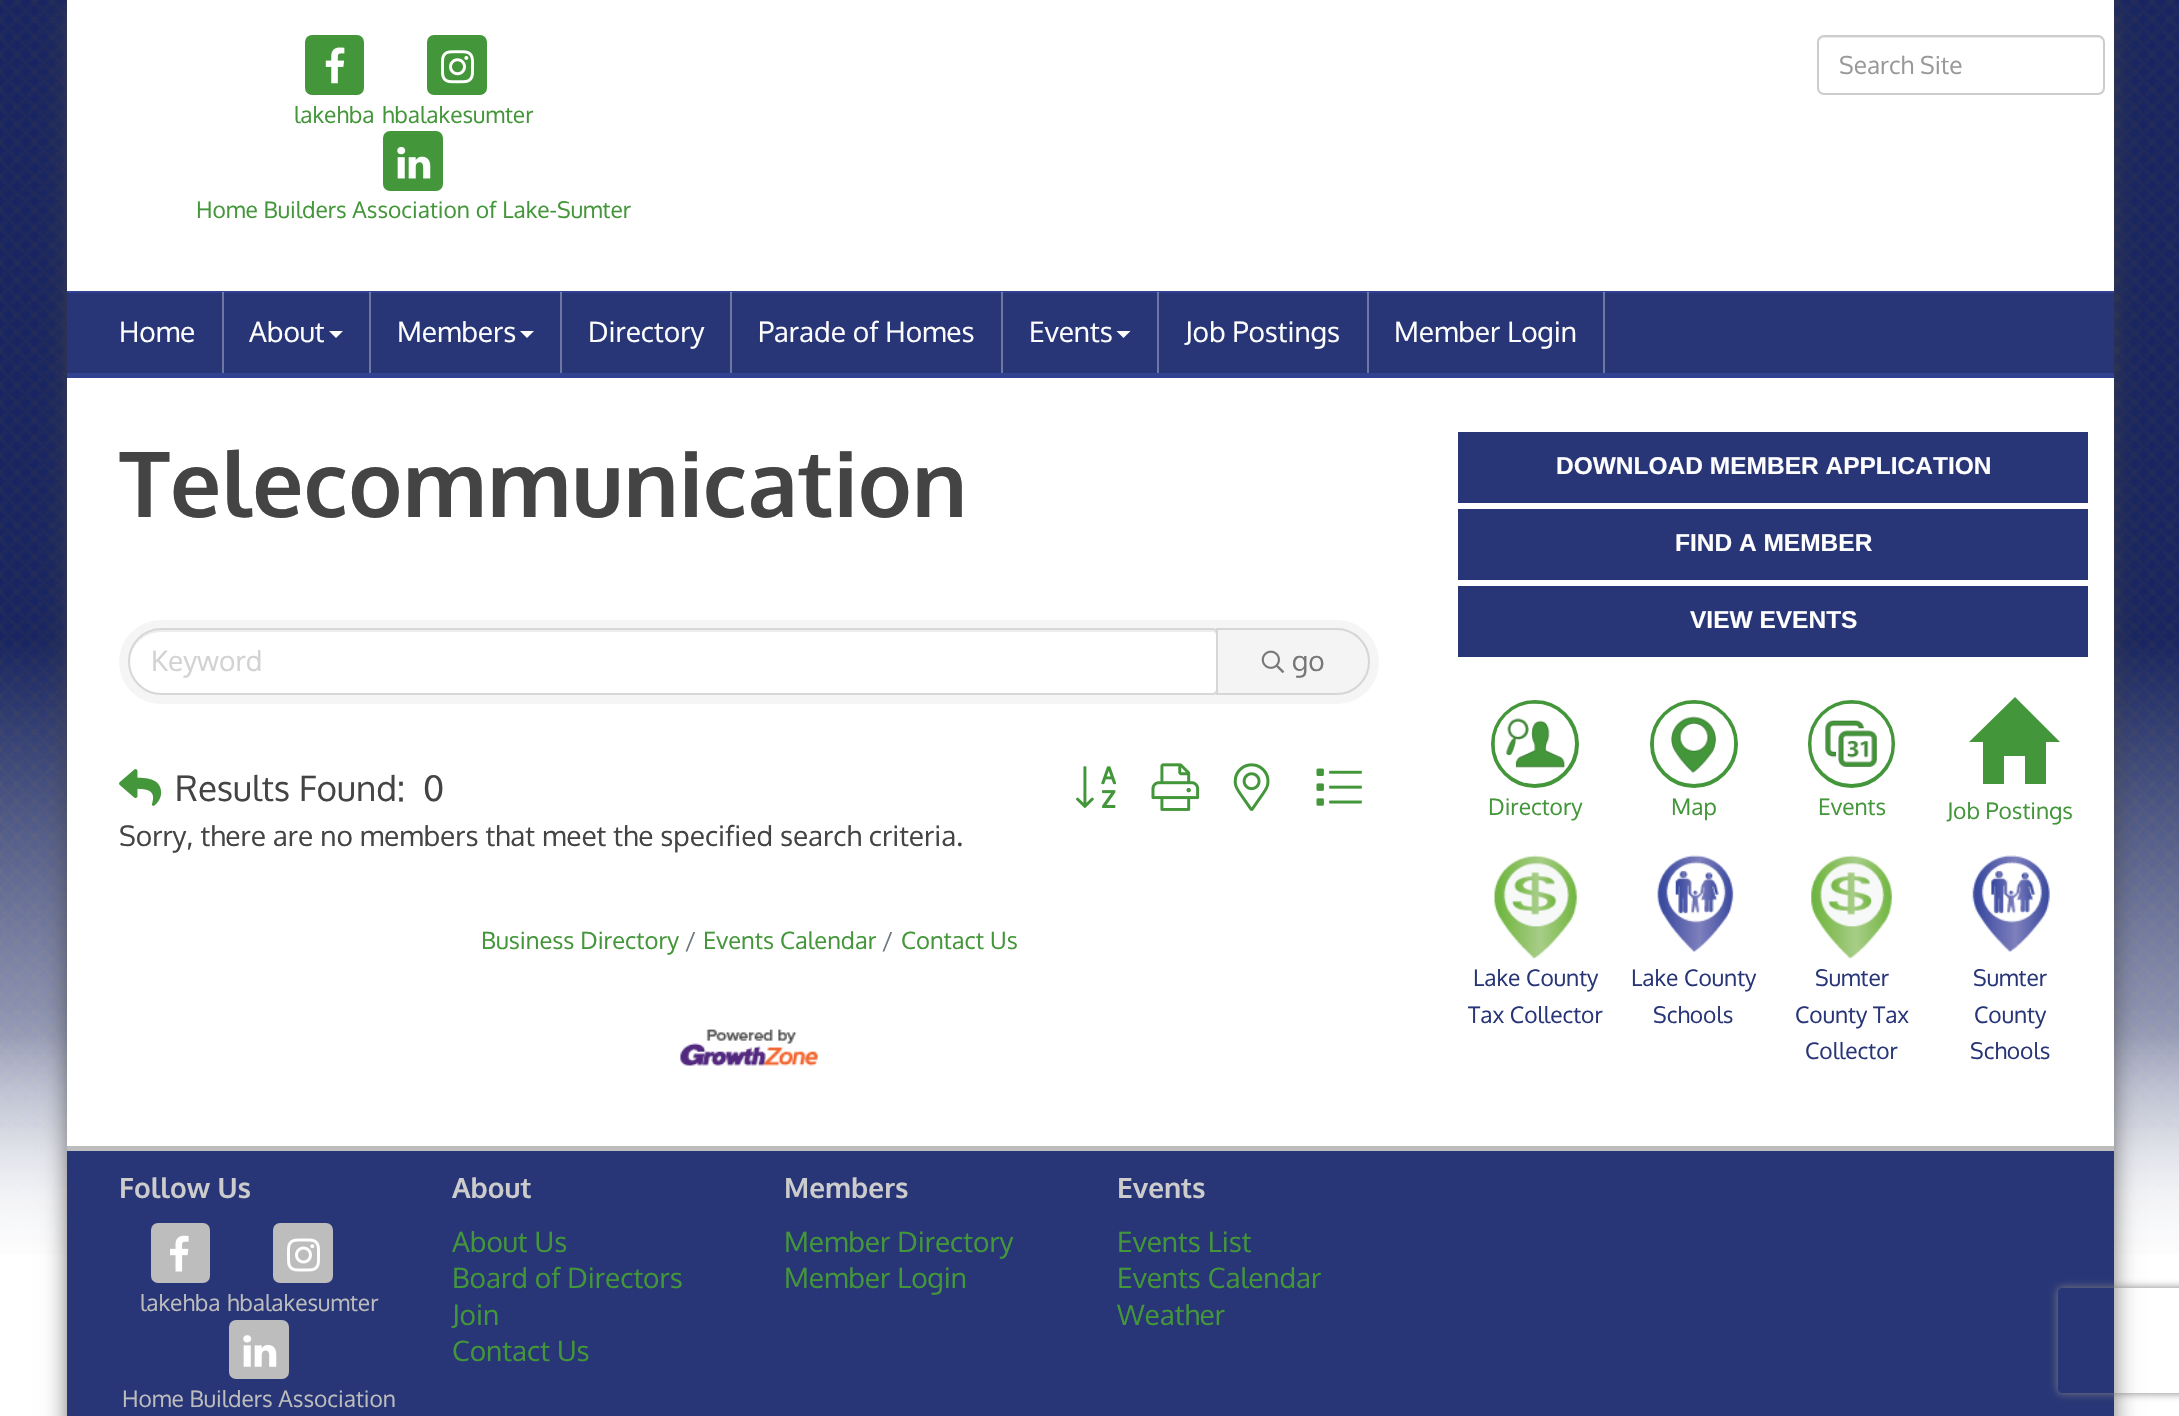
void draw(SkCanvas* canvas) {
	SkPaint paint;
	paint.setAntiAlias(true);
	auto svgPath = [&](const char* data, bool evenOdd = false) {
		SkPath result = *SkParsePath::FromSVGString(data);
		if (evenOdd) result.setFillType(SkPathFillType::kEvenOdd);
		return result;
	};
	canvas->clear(0xff182562);
	canvas->drawImageRect(SkImages::DeferredFromEncodedData(SkData::MakeFromFileName("img1.png")), SkRect::MakeXYWH(0, 0, 2179, 1416), SkSamplingOptions());
	paint.setColor(0xff444444);
	paint.setMaskFilter(SkMaskFilter::MakeBlur(kNormal_SkBlurStyle, 13));
	canvas->drawRect(SkRect::MakeXYWH(72, 5, 2037, 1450), paint);
	paint.setMaskFilter(nullptr);
	paint.setColor(0xffffffff);
	canvas->drawRect(SkRect::MakeXYWH(67, 0, 2047, 291), paint);
	paint.setColor(0xffececec);
	canvas->drawPath(svgPath("M1824 38H2098C2101 38 2104 41 2104 44C2104 41 2103 37 2099 37H1822C1818 38 1818 41 1818 44C1818 41 1821 38 1824 38Z"), paint);
	paint.setStroke(true);
	paint.setStrokeWidth(2);
	paint.setColor(0xffcccccc);
	canvas->drawRoundRect(SkRect::MakeXYWH(1818, 36, 286, 58), 6, 6, paint);
	SkFont f1(fontMgr->matchFamilyStyle("Oxygen", SkFontStyle::Normal()), 24.5);
	f1.setSubpixel(true);
	paint.setStroke(false);
	paint.setColor(0xff999999);
	canvas->drawString("Search Site", 1839, 74, f1, paint);
	paint.setColor(0xff439639);
	canvas->drawRoundRect(SkRect::MakeXYWH(306, 36, 57, 58), 6, 6, paint);
	paint.setStroke(true);
	canvas->drawRoundRect(SkRect::MakeXYWH(306, 36, 57, 58), 6, 6, paint);
	canvas->drawImageRect(SkImages::DeferredFromEncodedData(SkData::MakeFromFileName("img2.png")), SkRect::MakeXYWH(325, 47, 20, 37), SkSamplingOptions());
	SkFont f2(fontMgr->matchFamilyStyle("Oxygen", SkFontStyle::Normal()), 22.75);
	f2.setSubpixel(true);
	paint.setStroke(false);
	canvas->drawString("lakehba", 294, 123, f2, paint);
	canvas->drawRoundRect(SkRect::MakeXYWH(428, 36, 58, 58), 6, 6, paint);
	paint.setStroke(true);
	canvas->drawRoundRect(SkRect::MakeXYWH(428, 36, 58, 58), 6, 6, paint);
	canvas->drawImageRect(SkImages::DeferredFromEncodedData(SkData::MakeFromFileName("img3.png")), SkRect::MakeXYWH(441, 50, 33, 34), SkSamplingOptions());
	paint.setStroke(false);
	canvas->drawString("hbalakesumter", 382, 123, f2, paint);
	canvas->drawRoundRect(SkRect::MakeXYWH(384, 132, 58, 58), 6, 6, paint);
	paint.setStroke(true);
	canvas->drawRoundRect(SkRect::MakeXYWH(384, 132, 58, 58), 6, 6, paint);
	canvas->drawImageRect(SkImages::DeferredFromEncodedData(SkData::MakeFromFileName("img4.png")), SkRect::MakeXYWH(397, 146, 34, 33), SkSamplingOptions());
	paint.setStroke(false);
	canvas->drawString("Home Builders Association of Lake-Sumter", 196, 218, f2, paint);
	paint.setColor(0xff283677);
	canvas->drawRect(SkRect::MakeXYWH(67, 293, 2047, 80), paint);
	paint.setColor(0xff314292);
	canvas->drawRect(SkRect::MakeXYWH(67, 291, 2047, 2), paint);
	canvas->drawRect(SkRect::MakeXYWH(67, 373, 2047, 5), paint);
	paint.setColor(0x52ffffff);
	canvas->drawRect(SkRect::MakeXYWH(222, 292, 2, 81), paint);
	SkFont f3(fontMgr->matchFamilyStyle("Oxygen", SkFontStyle::Normal()), 28);
	f3.setSubpixel(true);
	paint.setColor(0xffffffff);
	canvas->drawString("Home", 119, 342, f3, paint);
	paint.setColor(0x52ffffff);
	canvas->drawRect(SkRect::MakeXYWH(369, 292, 2, 81), paint);
	paint.setColor(0xffffffff);
	canvas->drawString("About", 249, 342, f3, paint);
	canvas->drawPath(svgPath("M329 331H343L336 338Z"), paint);
	paint.setColor(0x52ffffff);
	canvas->drawRect(SkRect::MakeXYWH(560, 292, 2, 81), paint);
	paint.setColor(0xffffffff);
	canvas->drawString("Members", 397, 342, f3, paint);
	canvas->drawPath(svgPath("M520 331H534L527 338Z"), paint);
	paint.setColor(0x52ffffff);
	canvas->drawRect(SkRect::MakeXYWH(730, 292, 2, 81), paint);
	paint.setColor(0xffffffff);
	canvas->drawString("Directory", 588, 342, f3, paint);
	paint.setColor(0x52ffffff);
	canvas->drawRect(SkRect::MakeXYWH(1001, 292, 2, 81), paint);
	paint.setColor(0xffffffff);
	canvas->drawString("Parade of Homes", 758, 342, f3, paint);
	paint.setColor(0x52ffffff);
	canvas->drawRect(SkRect::MakeXYWH(1157, 292, 2, 81), paint);
	paint.setColor(0xffffffff);
	canvas->drawString("Events", 1029, 342, f3, paint);
	canvas->drawPath(svgPath("M1116.5 331H1130.5L1123.5 338Z"), paint);
	paint.setColor(0x52ffffff);
	canvas->drawRect(SkRect::MakeXYWH(1367, 292, 2, 81), paint);
	paint.setColor(0xffffffff);
	canvas->drawString("Job Postings", 1185, 342, f3, paint);
	paint.setColor(0x52ffffff);
	canvas->drawRect(SkRect::MakeXYWH(1603, 292, 2, 81), paint);
	paint.setColor(0xffffffff);
	canvas->drawString("Member Login", 1394, 342, f3, paint);
	canvas->drawRect(SkRect::MakeXYWH(67, 378, 2047, 768), paint);
	SkFont f4(fontMgr->matchFamilyStyle("Oxygen", SkFontStyle::Bold()), 90.75);
	f4.setSubpixel(true);
	paint.setColor(0xff444444);
	canvas->drawString("Telecommunication", 119, 517, f4, paint);
	paint.setColor(0xfff5f5f5);
	canvas->drawRoundRect(SkRect::MakeXYWH(119, 620, 1260, 84), 42, 42, paint);
	paint.setColor(0xffffffff);
	canvas->drawPath(svgPath("M161.5 630H1212C1214 630 1216 632 1216 634V689C1216 691 1214 693 1212 693H161.5C144 693 130 679 130 661.5C130 644 144 630 161.5 630Z"), paint);
	paint.setColor(0x12000000);
	canvas->drawPath(svgPath("M161 632H1212C1215 632 1216 633 1216 636C1216 634 1216 633 1215 631L1212 630H162C144 630 130 645 130 662C130 646 144 632 161 632Z"), paint);
	paint.setStroke(true);
	paint.setColor(0x1f000000);
	canvas->drawPath(svgPath("M161.5 629H1213C1215 629 1217 631 1217 633V690C1217 692 1215 694 1213 694H161.5C143.5 694 129 679.5 129 661.5C129 643.5 143.5 629 161.5 629Z"), paint);
	paint.setStroke(false);
	paint.setColor(0xffd2d2d2);
	canvas->drawString("Keyword", 151, 671, f3, paint);
	paint.setColor(0xfff4f4f4);
	canvas->drawPath(svgPath("M1217 629H1336.5C1354.5 629 1369 643.5 1369 661.5C1369 679.5 1354.5 694 1336.5 694H1217Z"), paint);
	paint.setStroke(true);
	paint.setColor(0xffd6d6d6);
	canvas->drawPath(svgPath("M1217 629H1336.5C1354.5 629 1369 643.5 1369 661.5C1369 679.5 1354.5 694 1336.5 694H1217Z"), paint);
	canvas->drawImageRect(SkImages::DeferredFromEncodedData(SkData::MakeFromFileName("img5.png")), SkRect::MakeXYWH(1261, 650, 24, 23), SkSamplingOptions());
	paint.setStroke(false);
	paint.setColor(0xff777777);
	canvas->drawString("go", 1292, 671, f3, paint);
	canvas->drawImageRect(SkImages::DeferredFromEncodedData(SkData::MakeFromFileName("img6.png")), SkRect::MakeXYWH(119, 769, 43, 37), SkSamplingOptions());
	SkFont f5(fontMgr->matchFamilyStyle("Oxygen", SkFontStyle::Normal()), 35);
	f5.setSubpixel(true);
	paint.setColor(0xff444444);
	canvas->drawString("Results Found:", 175, 801, f5, paint);
	canvas->drawString("0", 423, 801, f5, paint);
	canvas->drawImageRect(SkImages::DeferredFromEncodedData(SkData::MakeFromFileName("img7.png")), SkRect::MakeXYWH(1076, 766, 41, 42), SkSamplingOptions());
	canvas->drawImageRect(SkImages::DeferredFromEncodedData(SkData::MakeFromFileName("img8.png")), SkRect::MakeXYWH(1151, 763, 49, 48), SkSamplingOptions());
	canvas->drawImageRect(SkImages::DeferredFromEncodedData(SkData::MakeFromFileName("img9.png")), SkRect::MakeXYWH(1233, 763, 37, 48), SkSamplingOptions());
	canvas->drawImageRect(SkImages::DeferredFromEncodedData(SkData::MakeFromFileName("img10.png")), SkRect::MakeXYWH(1316, 768, 46, 38), SkSamplingOptions());
	canvas->drawString("Sorry, there are no members that meet the specified search criteria.", 119, 846, f3, paint);
	SkFont f6(fontMgr->matchFamilyStyle("Oxygen", SkFontStyle::Normal()), 23.75);
	f6.setSubpixel(true);
	paint.setColor(0xff439639);
	canvas->drawString("Business Directory", 481, 949, f6, paint);
	paint.setColor(0xff6c757d);
	canvas->drawString("/", 685, 949, f6, paint);
	paint.setColor(0xff439639);
	canvas->drawString("Events Calendar", 703, 949, f6, paint);
	paint.setColor(0xff6c757d);
	canvas->drawString("/", 882, 949, f6, paint);
	paint.setColor(0xff439639);
	canvas->drawString("Contact Us", 901, 949, f6, paint);
	canvas->drawImageRect(SkImages::DeferredFromEncodedData(SkData::MakeFromFileName("img11.png")), SkRect::MakeXYWH(680, 1029, 138, 37), SkSamplingOptions());
	paint.setColor(0xff283677);
	canvas->drawRect(SkRect::MakeXYWH(1458, 432, 630, 71), paint);
	SkFont f7(fontMgr->matchFamilyStyle("Liberation Sans", SkFontStyle::Bold()), 24.5);
	f7.setSubpixel(true);
	paint.setColor(0xffffffff);
	canvas->drawString("DOWNLOAD MEMBER APPLICATION", 1556, 474, f7, paint);
	paint.setColor(0xff283677);
	canvas->drawRect(SkRect::MakeXYWH(1458, 509, 630, 71), paint);
	paint.setColor(0xffffffff);
	canvas->drawString("FIND A MEMBER", 1675, 551, f7, paint);
	paint.setColor(0xff283677);
	canvas->drawRect(SkRect::MakeXYWH(1458, 586, 630, 71), paint);
	paint.setColor(0xffffffff);
	canvas->drawString("VIEW EVENTS", 1690, 628, f7, paint);
	paint.setColor(0xff439639);
	canvas->drawCircle(1535, 744, 42, paint);
	paint.setStroke(true);
	paint.setStrokeWidth(4);
	canvas->drawCircle(1535, 744, 42, paint);
	canvas->drawImageRect(SkImages::DeferredFromEncodedData(SkData::MakeFromFileName("img12.png")), SkRect::MakeXYWH(1494, 703, 81, 81), SkSamplingOptions());
	paint.setStroke(false);
	canvas->drawString("Directory", 1488, 815, f2, paint);
	canvas->drawCircle(1694, 744, 42, paint);
	paint.setStroke(true);
	canvas->drawCircle(1694, 744, 42, paint);
	canvas->drawImageRect(SkImages::DeferredFromEncodedData(SkData::MakeFromFileName("img13.png")), SkRect::MakeXYWH(1653, 703, 82, 81), SkSamplingOptions());
	paint.setStroke(false);
	canvas->drawString("Map", 1671, 815, f2, paint);
	canvas->drawRoundRect(SkRect::MakeXYWH(1810, 702, 83, 84), 41.5, 41.5, paint);
	paint.setStroke(true);
	canvas->drawRoundRect(SkRect::MakeXYWH(1810, 702, 83, 84), 41.5, 41.5, paint);
	canvas->drawImageRect(SkImages::DeferredFromEncodedData(SkData::MakeFromFileName("img14.png")), SkRect::MakeXYWH(1811, 703, 81, 81), SkSamplingOptions());
	paint.setStroke(false);
	canvas->drawString("Events", 1818, 815, f2, paint);
	canvas->drawPath(svgPath("M1969 742L2015 697L2060 742H2046V784H2025V756H2004V784H1983V742Z"), paint);
	canvas->drawString("Job Postings", 1947, 819, f2, paint);
	canvas->drawImageRect(SkImages::DeferredFromEncodedData(SkData::MakeFromFileName("img15.png")), SkRect::MakeXYWH(1494, 855, 83, 104), SkSamplingOptions());
	paint.setColor(0xff283677);
	canvas->drawString("Lake County", 1473, 986, f2, paint);
	canvas->drawString("Tax Collector", 1468, 1023, f2, paint);
	canvas->drawImageRect(SkImages::DeferredFromEncodedData(SkData::MakeFromFileName("img16.png")), SkRect::MakeXYWH(1657, 855, 77, 98), SkSamplingOptions());
	canvas->drawString("Lake County", 1631, 986, f2, paint);
	canvas->drawString("Schools", 1653, 1023, f2, paint);
	canvas->drawImageRect(SkImages::DeferredFromEncodedData(SkData::MakeFromFileName("img17.png")), SkRect::MakeXYWH(1811, 855, 81, 104), SkSamplingOptions());
	canvas->drawString("Sumter", 1815, 986, f2, paint);
	canvas->drawString("County Tax", 1795, 1023, f2, paint);
	canvas->drawString("Collector", 1805, 1059, f2, paint);
	canvas->drawImageRect(SkImages::DeferredFromEncodedData(SkData::MakeFromFileName("img18.png")), SkRect::MakeXYWH(1972, 855, 78, 98), SkSamplingOptions());
	canvas->drawString("Sumter", 1973, 986, f2, paint);
	canvas->drawString("County", 1974, 1023, f2, paint);
	canvas->drawString("Schools", 1970, 1059, f2, paint);
	canvas->drawRect(SkRect::MakeXYWH(67, 1151, 2047, 265), paint);
	paint.setColor(0xffbdbdbd);
	canvas->drawRect(SkRect::MakeXYWH(67, 1146, 2047, 5), paint);
	SkFont f8(fontMgr->matchFamilyStyle("Oxygen", SkFontStyle::Bold()), 28);
	f8.setSubpixel(true);
	paint.setColor(0xffcccccc);
	canvas->drawString("Follow Us", 119, 1198, f8, paint);
	paint.setColor(0xffbdbdbd);
	canvas->drawRoundRect(SkRect::MakeXYWH(152, 1224, 57, 58), 6, 6, paint);
	paint.setStroke(true);
	paint.setStrokeWidth(2);
	canvas->drawRoundRect(SkRect::MakeXYWH(152, 1224, 57, 58), 6, 6, paint);
	canvas->drawImageRect(SkImages::DeferredFromEncodedData(SkData::MakeFromFileName("img19.png")), SkRect::MakeXYWH(170, 1235, 19, 37), SkSamplingOptions());
	paint.setStroke(false);
	canvas->drawString("lakehba", 140, 1311, f2, paint);
	canvas->drawRoundRect(SkRect::MakeXYWH(274, 1224, 58, 58), 6, 6, paint);
	paint.setStroke(true);
	canvas->drawRoundRect(SkRect::MakeXYWH(274, 1224, 58, 58), 6, 6, paint);
	canvas->drawImageRect(SkImages::DeferredFromEncodedData(SkData::MakeFromFileName("img20.png")), SkRect::MakeXYWH(287, 1238, 33, 34), SkSamplingOptions());
	paint.setStroke(false);
	canvas->drawString("hbalakesumter", 227, 1311, f2, paint);
	canvas->drawRoundRect(SkRect::MakeXYWH(230, 1321, 58, 57), 6, 6, paint);
	paint.setStroke(true);
	canvas->drawRoundRect(SkRect::MakeXYWH(230, 1321, 58, 57), 6, 6, paint);
	canvas->drawImageRect(SkImages::DeferredFromEncodedData(SkData::MakeFromFileName("img21.png")), SkRect::MakeXYWH(243, 1335, 34, 32), SkSamplingOptions());
	paint.setStroke(false);
	canvas->drawString("Home Builders Association", 122, 1407, f2, paint);
	paint.setColor(0xffcccccc);
	canvas->drawString("About", 452, 1198, f8, paint);
	paint.setColor(0xff439639);
	canvas->drawString("About Us", 452, 1252, f3, paint);
	canvas->drawString("Board of Directors", 452, 1288, f3, paint);
	canvas->drawString("Join", 452, 1325, f3, paint);
	canvas->drawString("Contact Us", 452, 1361, f3, paint);
	paint.setColor(0xffcccccc);
	canvas->drawString("Members", 784, 1198, f8, paint);
	paint.setColor(0xff439639);
	canvas->drawString("Member Directory", 784, 1252, f3, paint);
	canvas->drawString("Member Login", 784, 1288, f3, paint);
	paint.setColor(0xffcccccc);
	canvas->drawString("Events", 1117, 1198, f8, paint);
	paint.setColor(0xff439639);
	canvas->drawString("Events List", 1117, 1252, f3, paint);
	canvas->drawString("Events Calendar", 1117, 1288, f3, paint);
	canvas->drawString("Weather", 1117, 1325, f3, paint);
	canvas->save();
	canvas->clipPath(svgPath("M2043 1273H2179V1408H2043ZM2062 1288H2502C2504 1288 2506 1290 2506 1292V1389C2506 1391 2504 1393 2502 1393H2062C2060 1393 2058 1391 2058 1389V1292C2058 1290 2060 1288 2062 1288Z", true), true);
	paint.setColor(0xff808080);
	paint.setMaskFilter(SkMaskFilter::MakeBlur(kNormal_SkBlurStyle, 4.5));
	canvas->drawRoundRect(SkRect::MakeXYWH(2058, 1288, 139, 105), 4, 4, paint);
	paint.setMaskFilter(nullptr);
	canvas->restore();
}
